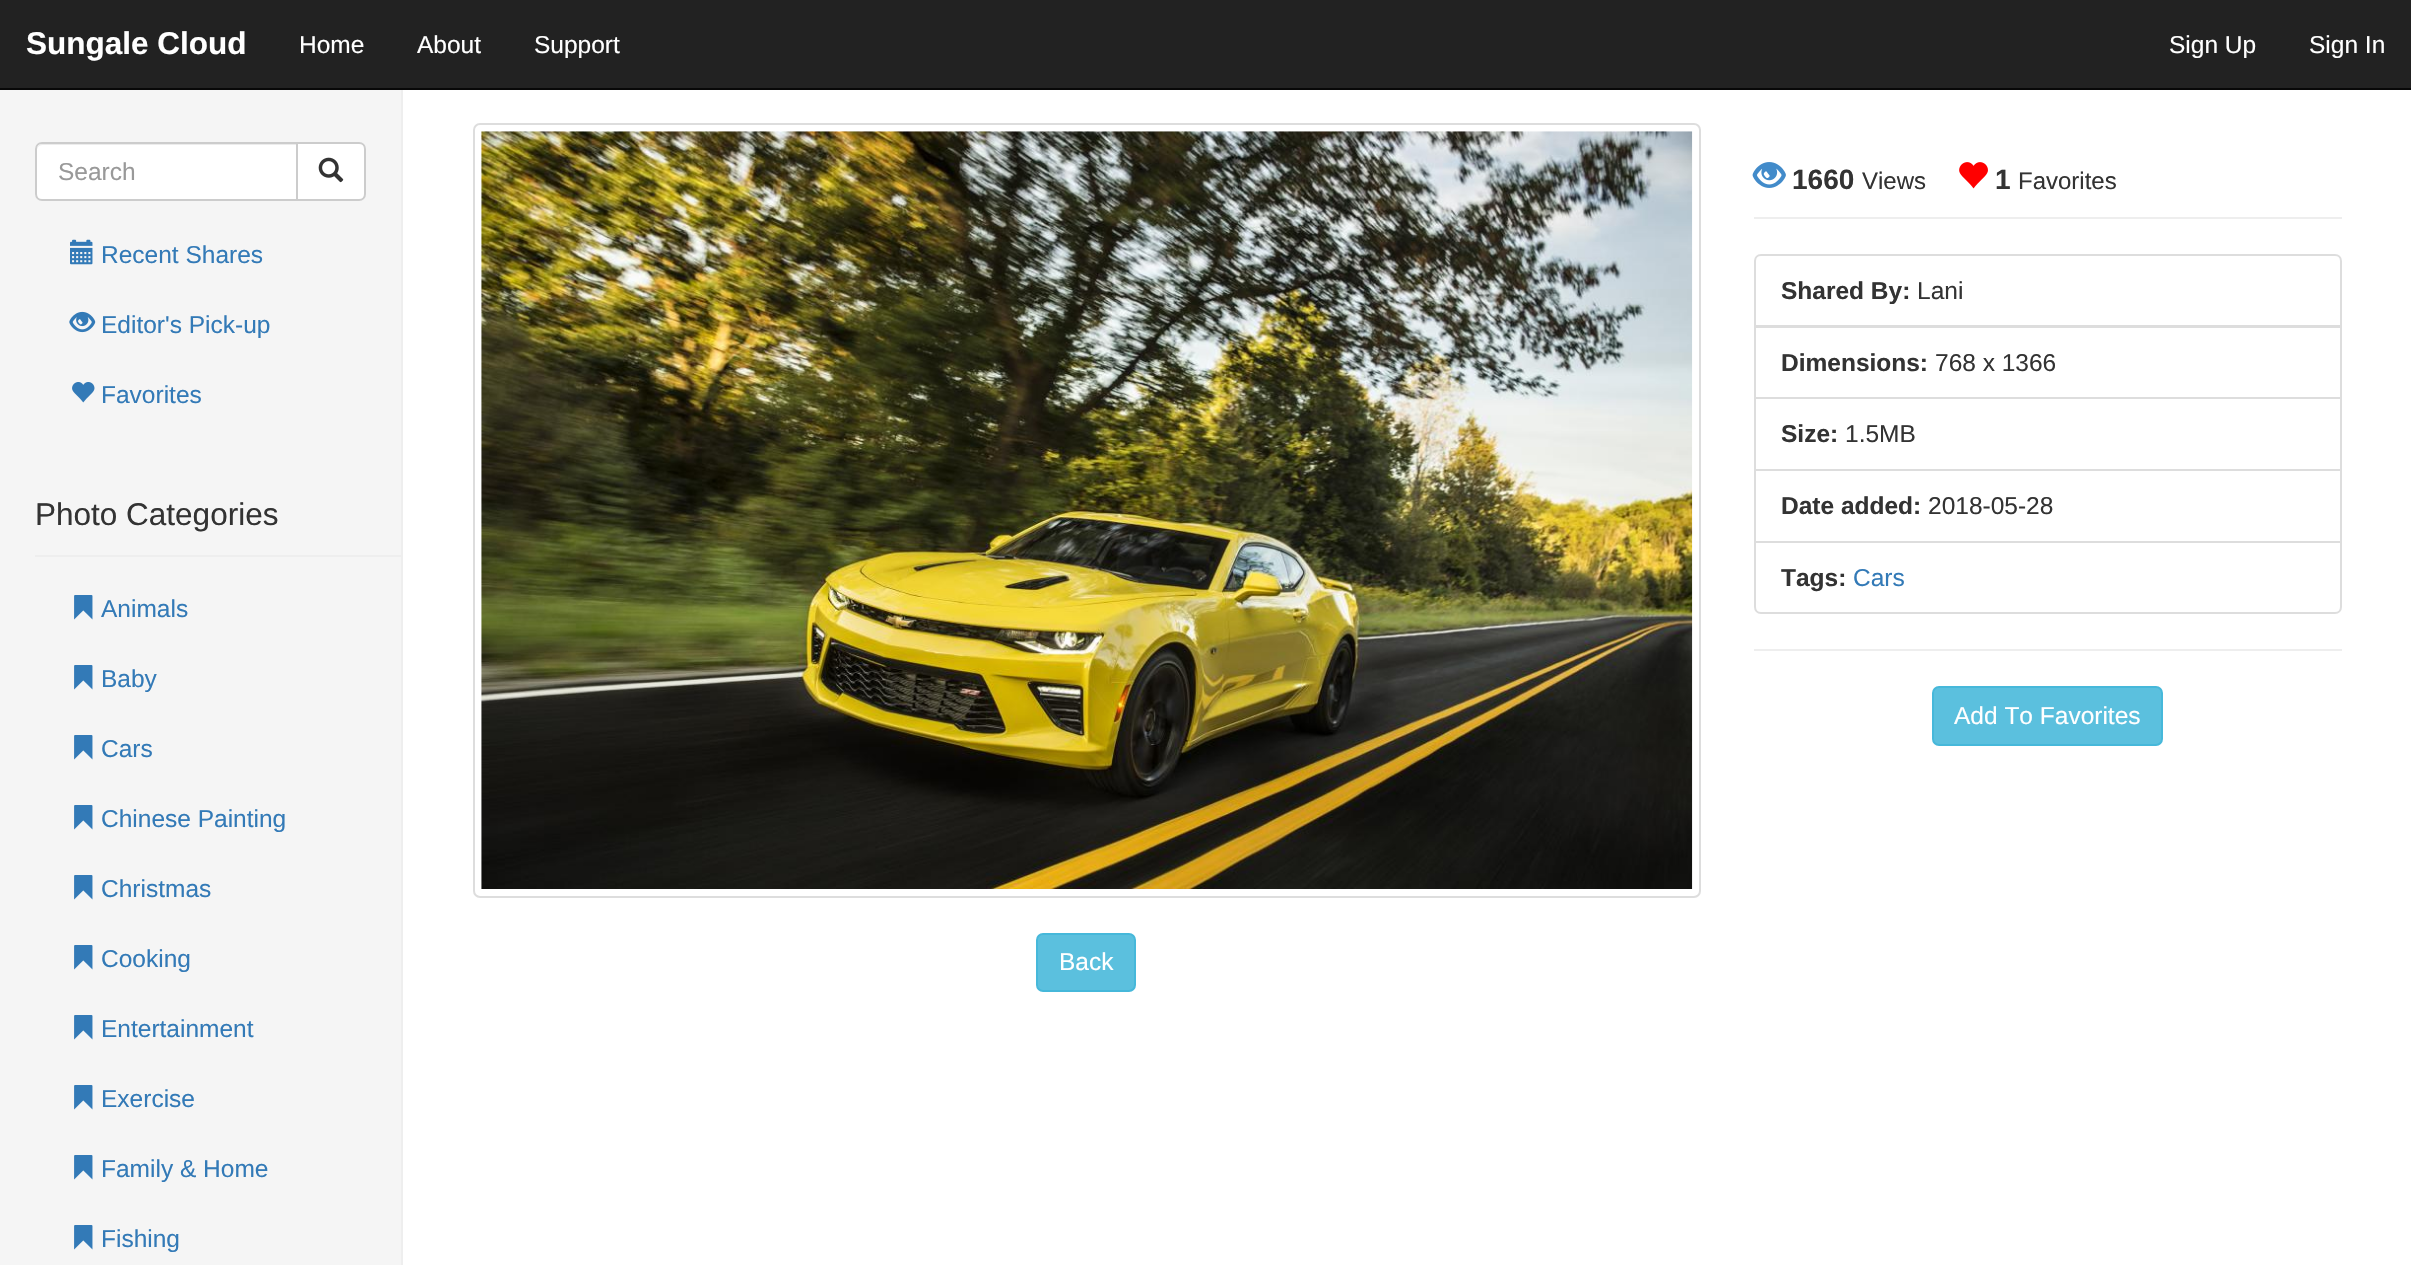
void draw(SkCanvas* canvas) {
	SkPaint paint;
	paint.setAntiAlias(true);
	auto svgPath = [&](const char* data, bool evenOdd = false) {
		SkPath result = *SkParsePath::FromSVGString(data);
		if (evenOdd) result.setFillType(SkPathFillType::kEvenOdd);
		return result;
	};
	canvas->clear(0xffffffff);
	paint.setColor(0xff222222);
	canvas->drawRect(SkRect::MakeXYWH(0, 0, 2411, 88), paint);
	paint.setColor(0xffeeeeee);
	canvas->drawRect(SkRect::MakeXYWH(401, 89, 2, 1176), paint);
	paint.setColor(0xff080808);
	canvas->drawRect(SkRect::MakeXYWH(0, 88, 2411, 2), paint);
	SkFont f1(fontMgr->matchFamilyStyle("Liberation Sans", SkFontStyle::Bold()), 31.5);
	f1.setSubpixel(true);
	paint.setColor(0xffffffff);
	canvas->drawString("Sungale Cloud", 26, 54, f1, paint);
	SkFont f2(fontMgr->matchFamilyStyle("Liberation Sans", SkFontStyle::Normal()), 24.5);
	f2.setSubpixel(true);
	canvas->drawString("Home", 299, 53, f2, paint);
	canvas->drawString("About", 417, 53, f2, paint);
	canvas->drawString("Support", 534, 53, f2, paint);
	canvas->drawString("Sign Up", 2169, 53, f2, paint);
	canvas->drawString("Sign In", 2309, 53, f2, paint);
	paint.setColor(0xfff5f5f5);
	canvas->drawRect(SkRect::MakeXYWH(0, 90, 401, 1175), paint);
	paint.setColor(0xffffffff);
	canvas->drawPath(svgPath("M42 142H298V201H42C38 201 35 198 35 194V149C35 145 38 142 42 142Z"), paint);
	paint.setColor(0xffececec);
	canvas->drawPath(svgPath("M42 145H296V144H42C39 144 37 147 37 150C37 148 39 145 42 145Z"), paint);
	paint.setStroke(true);
	paint.setStrokeWidth(2);
	paint.setColor(0xffcccccc);
	canvas->drawPath(svgPath("M42 143H297V200H42C38.5 200 36 197.5 36 194V149C36 145.5 38.5 143 42 143Z"), paint);
	paint.setStroke(false);
	paint.setColor(0xff999999);
	canvas->drawString("Search", 58, 180, f2, paint);
	paint.setColor(0xffffffff);
	canvas->drawPath(svgPath("M297 143H359C362.5 143 365 145.5 365 149V194C365 197.5 362.5 200 359 200H297Z"), paint);
	paint.setStroke(true);
	paint.setColor(0xffcccccc);
	canvas->drawPath(svgPath("M297 143H359C362.5 143 365 145.5 365 149V194C365 197.5 362.5 200 359 200H297Z"), paint);
	canvas->drawImageRect(SkImages::DeferredFromEncodedData(SkData::MakeFromFileName("img1.png")), SkRect::MakeXYWH(318, 157, 26, 26), SkSamplingOptions());
	canvas->drawImageRect(SkImages::DeferredFromEncodedData(SkData::MakeFromFileName("img2.png")), SkRect::MakeXYWH(70, 239, 23, 26), SkSamplingOptions());
	paint.setStroke(false);
	paint.setColor(0xff337ab7);
	canvas->drawString("Recent Shares", 101, 263, f2, paint);
	canvas->drawImageRect(SkImages::DeferredFromEncodedData(SkData::MakeFromFileName("img3.png")), SkRect::MakeXYWH(69, 311, 27, 22), SkSamplingOptions());
	canvas->drawString("Editor's Pick-up", 101, 333, f2, paint);
	canvas->drawImageRect(SkImages::DeferredFromEncodedData(SkData::MakeFromFileName("img4.png")), SkRect::MakeXYWH(72, 382, 23, 21), SkSamplingOptions());
	canvas->drawString("Favorites", 101, 403, f2, paint);
	paint.setColor(0xffeeeeee);
	canvas->drawRect(SkRect::MakeXYWH(35, 555, 366, 2), paint);
	SkFont f3(fontMgr->matchFamilyStyle("Liberation Sans", SkFontStyle::Normal()), 31.5);
	f3.setSubpixel(true);
	paint.setColor(0xff333333);
	canvas->drawString("Photo Categories", 35, 525, f3, paint);
	canvas->drawImageRect(SkImages::DeferredFromEncodedData(SkData::MakeFromFileName("img5.png")), SkRect::MakeXYWH(74, 595, 19, 25), SkSamplingOptions());
	paint.setColor(0xff337ab7);
	canvas->drawString("Animals", 101, 617, f2, paint);
	canvas->drawImageRect(SkImages::DeferredFromEncodedData(SkData::MakeFromFileName("img5.png")), SkRect::MakeXYWH(74, 665, 19, 25), SkSamplingOptions());
	canvas->drawString("Baby", 101, 687, f2, paint);
	canvas->drawImageRect(SkImages::DeferredFromEncodedData(SkData::MakeFromFileName("img5.png")), SkRect::MakeXYWH(74, 735, 19, 25), SkSamplingOptions());
	canvas->drawString("Cars", 101, 757, f2, paint);
	canvas->drawImageRect(SkImages::DeferredFromEncodedData(SkData::MakeFromFileName("img5.png")), SkRect::MakeXYWH(74, 805, 19, 25), SkSamplingOptions());
	canvas->drawString("Chinese Painting", 101, 827, f2, paint);
	canvas->drawImageRect(SkImages::DeferredFromEncodedData(SkData::MakeFromFileName("img5.png")), SkRect::MakeXYWH(74, 875, 19, 25), SkSamplingOptions());
	canvas->drawString("Christmas", 101, 897, f2, paint);
	canvas->drawImageRect(SkImages::DeferredFromEncodedData(SkData::MakeFromFileName("img5.png")), SkRect::MakeXYWH(74, 945, 19, 25), SkSamplingOptions());
	canvas->drawString("Cooking", 101, 967, f2, paint);
	canvas->drawImageRect(SkImages::DeferredFromEncodedData(SkData::MakeFromFileName("img5.png")), SkRect::MakeXYWH(74, 1015, 19, 25), SkSamplingOptions());
	canvas->drawString("Entertainment", 101, 1037, f2, paint);
	canvas->drawImageRect(SkImages::DeferredFromEncodedData(SkData::MakeFromFileName("img5.png")), SkRect::MakeXYWH(74, 1085, 19, 25), SkSamplingOptions());
	canvas->drawString("Exercise", 101, 1107, f2, paint);
	canvas->drawImageRect(SkImages::DeferredFromEncodedData(SkData::MakeFromFileName("img5.png")), SkRect::MakeXYWH(74, 1155, 19, 25), SkSamplingOptions());
	canvas->drawString("Family & Home", 101, 1177, f2, paint);
	canvas->drawImageRect(SkImages::DeferredFromEncodedData(SkData::MakeFromFileName("img5.png")), SkRect::MakeXYWH(74, 1225, 19, 25), SkSamplingOptions());
	canvas->drawString("Fishing", 101, 1247, f2, paint);
	paint.setColor(0xffeeeeee);
	canvas->drawRect(SkRect::MakeXYWH(1754, 217, 588, 2), paint);
	canvas->drawImageRect(SkImages::DeferredFromEncodedData(SkData::MakeFromFileName("img6.png")), SkRect::MakeXYWH(1752, 162, 34, 26), SkSamplingOptions());
	SkFont f4(fontMgr->matchFamilyStyle("Liberation Sans", SkFontStyle::Bold()), 28);
	f4.setSubpixel(true);
	paint.setColor(0xff333333);
	canvas->drawString("1660", 1792, 189, f4, paint);
	SkFont f5(fontMgr->matchFamilyStyle("Liberation Sans", SkFontStyle::Normal()), 24);
	f5.setSubpixel(true);
	canvas->drawString("Views", 1862, 189, f5, paint);
	canvas->drawImageRect(SkImages::DeferredFromEncodedData(SkData::MakeFromFileName("img7.png")), SkRect::MakeXYWH(1959, 162, 29, 27), SkSamplingOptions());
	canvas->drawString("1", 1995, 189, f4, paint);
	canvas->drawString("Favorites", 2018, 189, f5, paint);
	paint.setStroke(true);
	paint.setColor(0xffdddddd);
	canvas->drawPath(svgPath("M1761 255H2335C2338.5 255 2341 257.5 2341 261V326H1755V261C1755 257.5 1757.5 255 1761 255Z"), paint);
	SkFont f6(fontMgr->matchFamilyStyle("Liberation Sans", SkFontStyle::Bold()), 24.5);
	f6.setSubpixel(true);
	paint.setStroke(false);
	paint.setColor(0xff333333);
	canvas->drawString("Shared By:", 1781, 299, f6, paint);
	canvas->drawString("Lani", 1917, 299, f2, paint);
	paint.setStroke(true);
	paint.setColor(0xffdddddd);
	canvas->drawRect(SkRect::MakeXYWH(1755, 327, 586, 71), paint);
	paint.setStroke(false);
	paint.setColor(0xff333333);
	canvas->drawString("Dimensions:", 1781, 371, f6, paint);
	canvas->drawString("768 x 1366", 1935, 371, f2, paint);
	paint.setStroke(true);
	paint.setColor(0xffdddddd);
	canvas->drawRect(SkRect::MakeXYWH(1755, 398, 586, 72), paint);
	paint.setStroke(false);
	paint.setColor(0xff333333);
	canvas->drawString("Size:", 1781, 442, f6, paint);
	canvas->drawString("1.5MB", 1845, 442, f2, paint);
	paint.setStroke(true);
	paint.setColor(0xffdddddd);
	canvas->drawRect(SkRect::MakeXYWH(1755, 470, 586, 72), paint);
	paint.setStroke(false);
	paint.setColor(0xff333333);
	canvas->drawString("Date added:", 1781, 514, f6, paint);
	canvas->drawString("2018-05-28", 1928, 514, f2, paint);
	paint.setColor(0xffffffff);
	canvas->drawPath(svgPath("M1755 542H2341V607C2341 610.5 2338.5 613 2335 613H1761C1757.5 613 1755 610.5 1755 607Z"), paint);
	paint.setStroke(true);
	paint.setColor(0xffdddddd);
	canvas->drawPath(svgPath("M1755 542H2341V607C2341 610.5 2338.5 613 2335 613H1761C1757.5 613 1755 610.5 1755 607Z"), paint);
	paint.setStroke(false);
	paint.setColor(0xff333333);
	canvas->drawString("Tags:", 1781, 586, f6, paint);
	paint.setColor(0xff337ab7);
	canvas->drawString("Cars", 1853, 586, f2, paint);
	paint.setColor(0xffeeeeee);
	canvas->drawRect(SkRect::MakeXYWH(1754, 649, 588, 2), paint);
	paint.setColor(0xff5bc0de);
	canvas->drawRoundRect(SkRect::MakeXYWH(1933, 687, 229, 58), 6, 6, paint);
	paint.setStroke(true);
	paint.setColor(0xff46b8da);
	canvas->drawRoundRect(SkRect::MakeXYWH(1933, 687, 229, 58), 6, 6, paint);
	paint.setStroke(false);
	paint.setColor(0xffffffff);
	canvas->drawString("Add To Favorites", 1954, 724, f2, paint);
	paint.setStroke(true);
	paint.setColor(0xffdddddd);
	canvas->drawRoundRect(SkRect::MakeXYWH(474, 124, 1226, 773), 6, 6, paint);
	canvas->drawImageRect(SkImages::DeferredFromEncodedData(SkData::MakeFromFileName("img8.png")), SkRect::MakeXYWH(481, 131, 1212, 758), SkSamplingOptions());
	paint.setStroke(false);
	paint.setColor(0xff5bc0de);
	canvas->drawRoundRect(SkRect::MakeXYWH(1037, 934, 98, 57), 6, 6, paint);
	paint.setStroke(true);
	paint.setColor(0xff46b8da);
	canvas->drawRoundRect(SkRect::MakeXYWH(1037, 934, 98, 57), 6, 6, paint);
	paint.setStroke(false);
	paint.setColor(0xffffffff);
	canvas->drawString("Back", 1059, 970, f2, paint);
}
